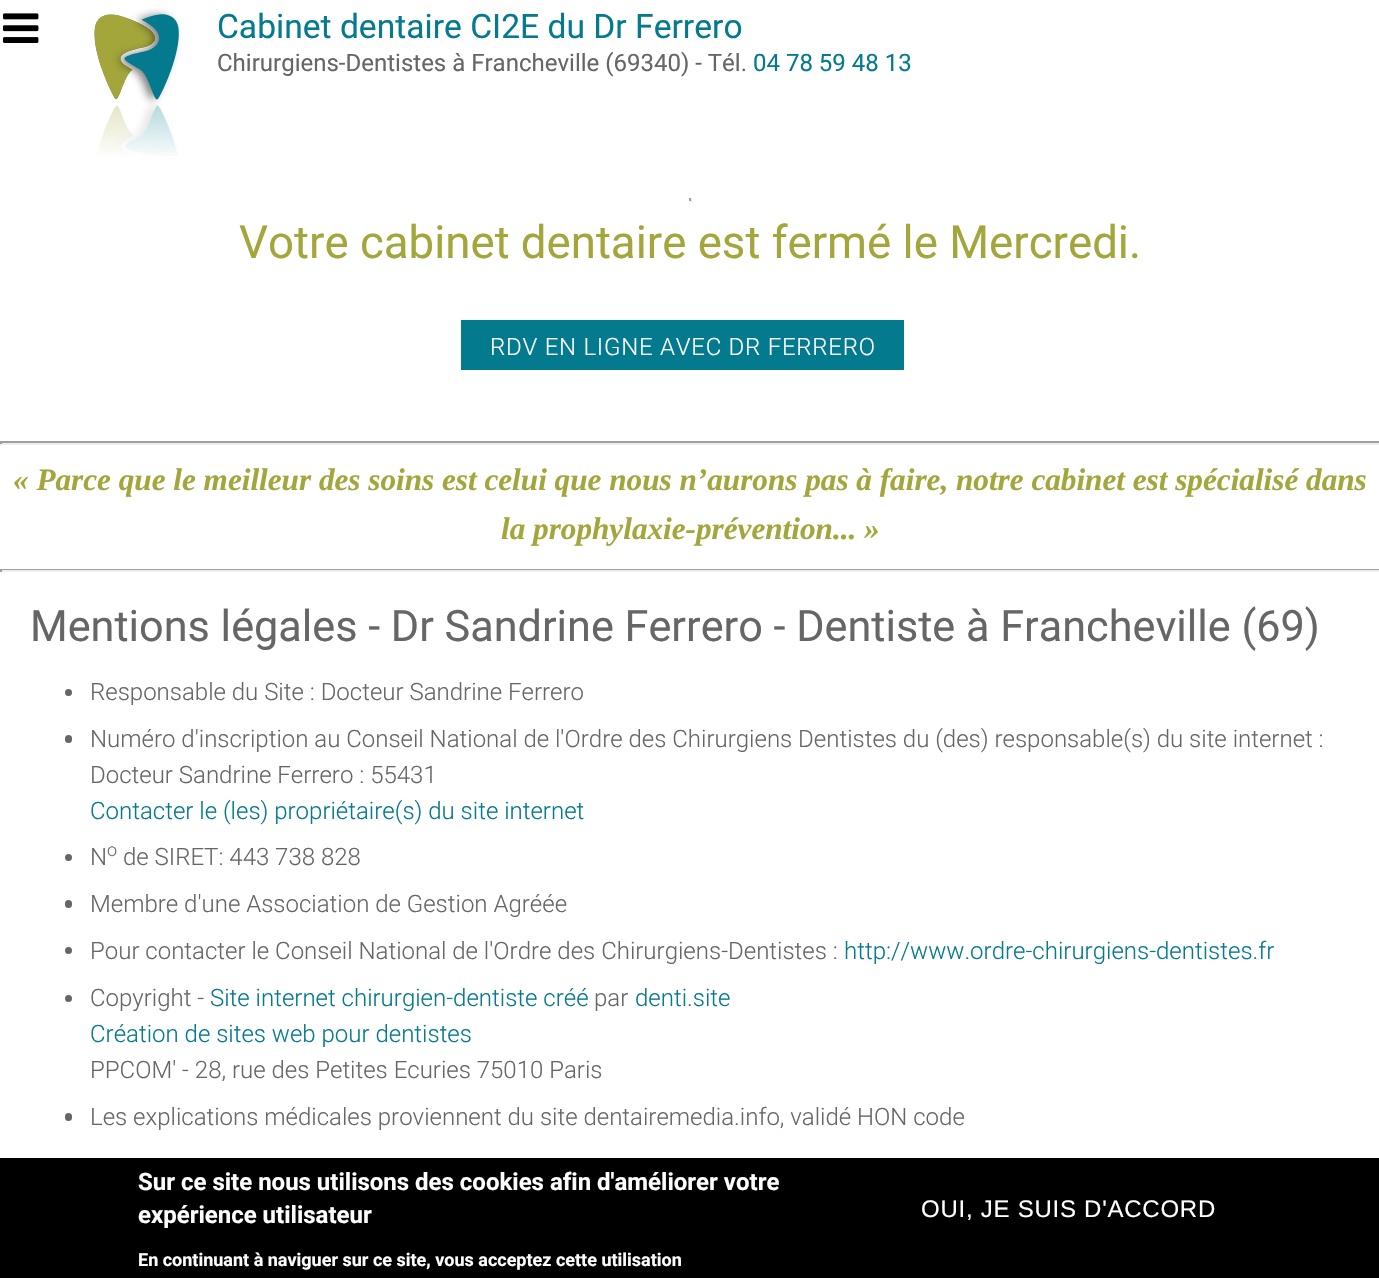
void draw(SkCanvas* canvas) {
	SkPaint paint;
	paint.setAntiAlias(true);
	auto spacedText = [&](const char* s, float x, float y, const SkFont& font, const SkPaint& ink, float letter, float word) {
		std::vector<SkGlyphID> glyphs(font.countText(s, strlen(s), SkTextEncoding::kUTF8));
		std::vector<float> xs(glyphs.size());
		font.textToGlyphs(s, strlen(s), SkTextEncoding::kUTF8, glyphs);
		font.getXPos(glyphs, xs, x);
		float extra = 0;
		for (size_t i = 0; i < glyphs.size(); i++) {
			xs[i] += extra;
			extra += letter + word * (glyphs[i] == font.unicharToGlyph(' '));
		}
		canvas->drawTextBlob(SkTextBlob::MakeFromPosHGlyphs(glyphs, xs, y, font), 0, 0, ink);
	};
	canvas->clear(0xffffffff);
	canvas->drawImageRect(SkImages::DeferredFromEncodedData(SkData::MakeFromFileName("img1.png")), SkRect::MakeXYWH(2, 13, 37, 30), SkSamplingOptions());
	canvas->drawImageRect(SkImages::DeferredFromEncodedData(SkData::MakeFromFileName("img2.png")), SkRect::MakeXYWH(94, 8, 87, 148), SkSamplingOptions());
	SkFont f1(fontMgr->matchFamilyStyle("Roboto", SkFontStyle::Normal()), 33.6);
	f1.setSubpixel(true);
	paint.setColor(0xff047a8f);
	canvas->drawString("Cabinet dentaire CI2E du Dr Ferrero", 217, 38, f1, paint);
	SkFont f2(fontMgr->matchFamilyStyle("Roboto", SkFontStyle::Normal()), 24);
	f2.setSubpixel(true);
	paint.setColor(0xff666666);
	canvas->drawString("Chirurgiens-Dentistes à Francheville (69340) - Tél.", 217, 71, f2, paint);
	paint.setColor(0xff047a8f);
	canvas->drawString("04 78 59 48 13", 753, 71, f2, paint);
	paint.setColor(0xffeeeeee);
	canvas->drawRect(SkRect::MakeXYWH(691, 198, 1, 3), paint);
	canvas->drawRect(SkRect::MakeXYWH(689, 200, 3, 2), paint);
	paint.setColor(0xff9f9f9f);
	canvas->drawRect(SkRect::MakeXYWH(689, 198, 2, 3), paint);
	SkFont f3(fontMgr->matchFamilyStyle("Roboto", SkFontStyle::Normal()), 45.6);
	f3.setSubpixel(true);
	paint.setColor(0xffa3a63b);
	canvas->drawString("Votre cabinet dentaire est fermé le Mercredi.", 239, 258, f3, paint);
	paint.setColor(0xff047a8f);
	canvas->drawRect(SkRect::MakeXYWH(461, 320, 443, 50), paint);
	SkFont f4(fontMgr->matchFamilyStyle("Roboto", SkFontStyle(300, SkFontStyle::kNormal_Width, SkFontStyle::kUpright_Slant)), 24);
	f4.setSubpixel(true);
	paint.setColor(0xffffffff);
	spacedText("RDV EN LIGNE AVEC DR FERRERO", 490, 355, f4, paint, 0.75, 0);
	paint.setColor(0xff9f9f9f);
	canvas->drawRect(SkRect::MakeXYWH(0, 441, 1379, 2), paint);
	paint.setColor(0xffeeeeee);
	canvas->drawRect(SkRect::MakeXYWH(0, 443, 1379, 2), paint);
	paint.setColor(0xff9f9f9f);
	canvas->drawRect(SkRect::MakeXYWH(0, 441, 2, 3), paint);
	SkFont f5(fontMgr->matchFamilyStyle("Liberation Serif", SkFontStyle::BoldItalic()), 31.2);
	f5.setSubpixel(true);
	paint.setColor(0xffa3a63b);
	canvas->drawString("« Parce que le meilleur des soins est celui que nous n’aurons pas à faire, notre cabinet est spécialisé dans", 13, 490, f5, paint);
	canvas->drawString("la prophylaxie-prévention... »", 501, 539, f5, paint);
	paint.setColor(0xff9f9f9f);
	canvas->drawRect(SkRect::MakeXYWH(0, 569, 1379, 1), paint);
	paint.setColor(0xffeeeeee);
	canvas->drawRect(SkRect::MakeXYWH(0, 570, 1379, 2), paint);
	paint.setColor(0xff9f9f9f);
	canvas->drawRect(SkRect::MakeXYWH(0, 569, 2, 3), paint);
	SkFont f6(fontMgr->matchFamilyStyle("Roboto", SkFontStyle::Normal()), 43.2);
	f6.setSubpixel(true);
	paint.setColor(0xff666666);
	canvas->drawString("Mentions légales - Dr Sandrine Ferrero - Dentiste à Francheville (69)", 30, 641, f6, paint);
	canvas->drawCircle(68.5, 692.5, 3.5, paint);
	canvas->drawString("Responsable du Site : Docteur Sandrine Ferrero", 90, 700, f4, paint);
	canvas->drawRoundRect(SkRect::MakeXYWH(65, 735, 7, 8), 3.5, 3.5, paint);
	canvas->drawString("Numéro d'inscription au Conseil National de l'Ordre des Chirurgiens Dentistes du (des) responsable(s) du site internet :", 90, 747, f4, paint);
	canvas->drawString("Docteur Sandrine Ferrero : 55431", 90, 783, f4, paint);
	paint.setColor(0xff047a8f);
	canvas->drawString("Contacter le (les) propriétaire(s) du site internet", 90, 819, f4, paint);
	paint.setColor(0xff666666);
	canvas->drawCircle(68.5, 857.5, 3.5, paint);
	canvas->drawString("N", 90, 865, f4, paint);
	SkFont f7(fontMgr->matchFamilyStyle("Roboto", SkFontStyle(300, SkFontStyle::kNormal_Width, SkFontStyle::kUpright_Slant)), 18);
	f7.setSubpixel(true);
	canvas->drawString("o", 107, 856, f7, paint);
	canvas->drawString("de SIRET: 443 738 828", 123, 865, f4, paint);
	canvas->drawRoundRect(SkRect::MakeXYWH(65, 900, 7, 8), 3.5, 3.5, paint);
	canvas->drawString("Membre d'une Association de Gestion Agréée", 90, 912, f4, paint);
	canvas->drawCircle(68.5, 950.5, 3.5, paint);
	canvas->drawString("Pour contacter le Conseil National de l'Ordre des Chirurgiens-Dentistes :", 90, 959, f4, paint);
	paint.setColor(0xff047a8f);
	canvas->drawString("http://www.ordre-chirurgiens-dentistes.fr", 844, 959, f4, paint);
	paint.setColor(0xff666666);
	canvas->drawCircle(68.5, 998.5, 3.5, paint);
	canvas->drawString("Copyright -", 90, 1006, f4, paint);
	paint.setColor(0xff047a8f);
	canvas->drawString("Site internet chirurgien-dentiste créé", 210, 1006, f4, paint);
	paint.setColor(0xff666666);
	canvas->drawString("par", 594, 1006, f4, paint);
	paint.setColor(0xff047a8f);
	canvas->drawString("denti.site", 635, 1006, f4, paint);
	canvas->drawString("Création de sites web pour dentistes", 90, 1042, f4, paint);
	paint.setColor(0xff666666);
	canvas->drawString("PPCOM' - 28, rue des Petites Ecuries 75010 Paris", 90, 1078, f4, paint);
	canvas->drawRoundRect(SkRect::MakeXYWH(65, 1113, 7, 8), 3.5, 3.5, paint);
	canvas->drawString("Les explications médicales proviennent du site dentairemedia.info, validé HON code", 90, 1125, f4, paint);
	paint.setColor(0xff000000);
	canvas->drawRect(SkRect::MakeXYWH(0, 1158, 1379, 120), paint);
	SkFont f8(fontMgr->matchFamilyStyle("Roboto", SkFontStyle::Bold()), 24);
	f8.setSubpixel(true);
	paint.setColor(0xffffffff);
	canvas->drawString("Sur ce site nous utilisons des cookies afin d'améliorer votre", 138, 1190, f8, paint);
	canvas->drawString("expérience utilisateur", 138, 1223, f8, paint);
	SkFont f9(fontMgr->matchFamilyStyle("Roboto", SkFontStyle::Bold()), 18);
	f9.setSubpixel(true);
	canvas->drawString("En continuant à naviguer sur ce site, vous acceptez cette utilisation", 138, 1266, f9, paint);
	SkFont f10(fontMgr->matchFamilyStyle("Liberation Sans", SkFontStyle::Normal()), 24);
	f10.setSubpixel(true);
	spacedText("OUI, JE SUIS D'ACCORD", 921, 1217, f10, paint, 0.75, 0);
}
